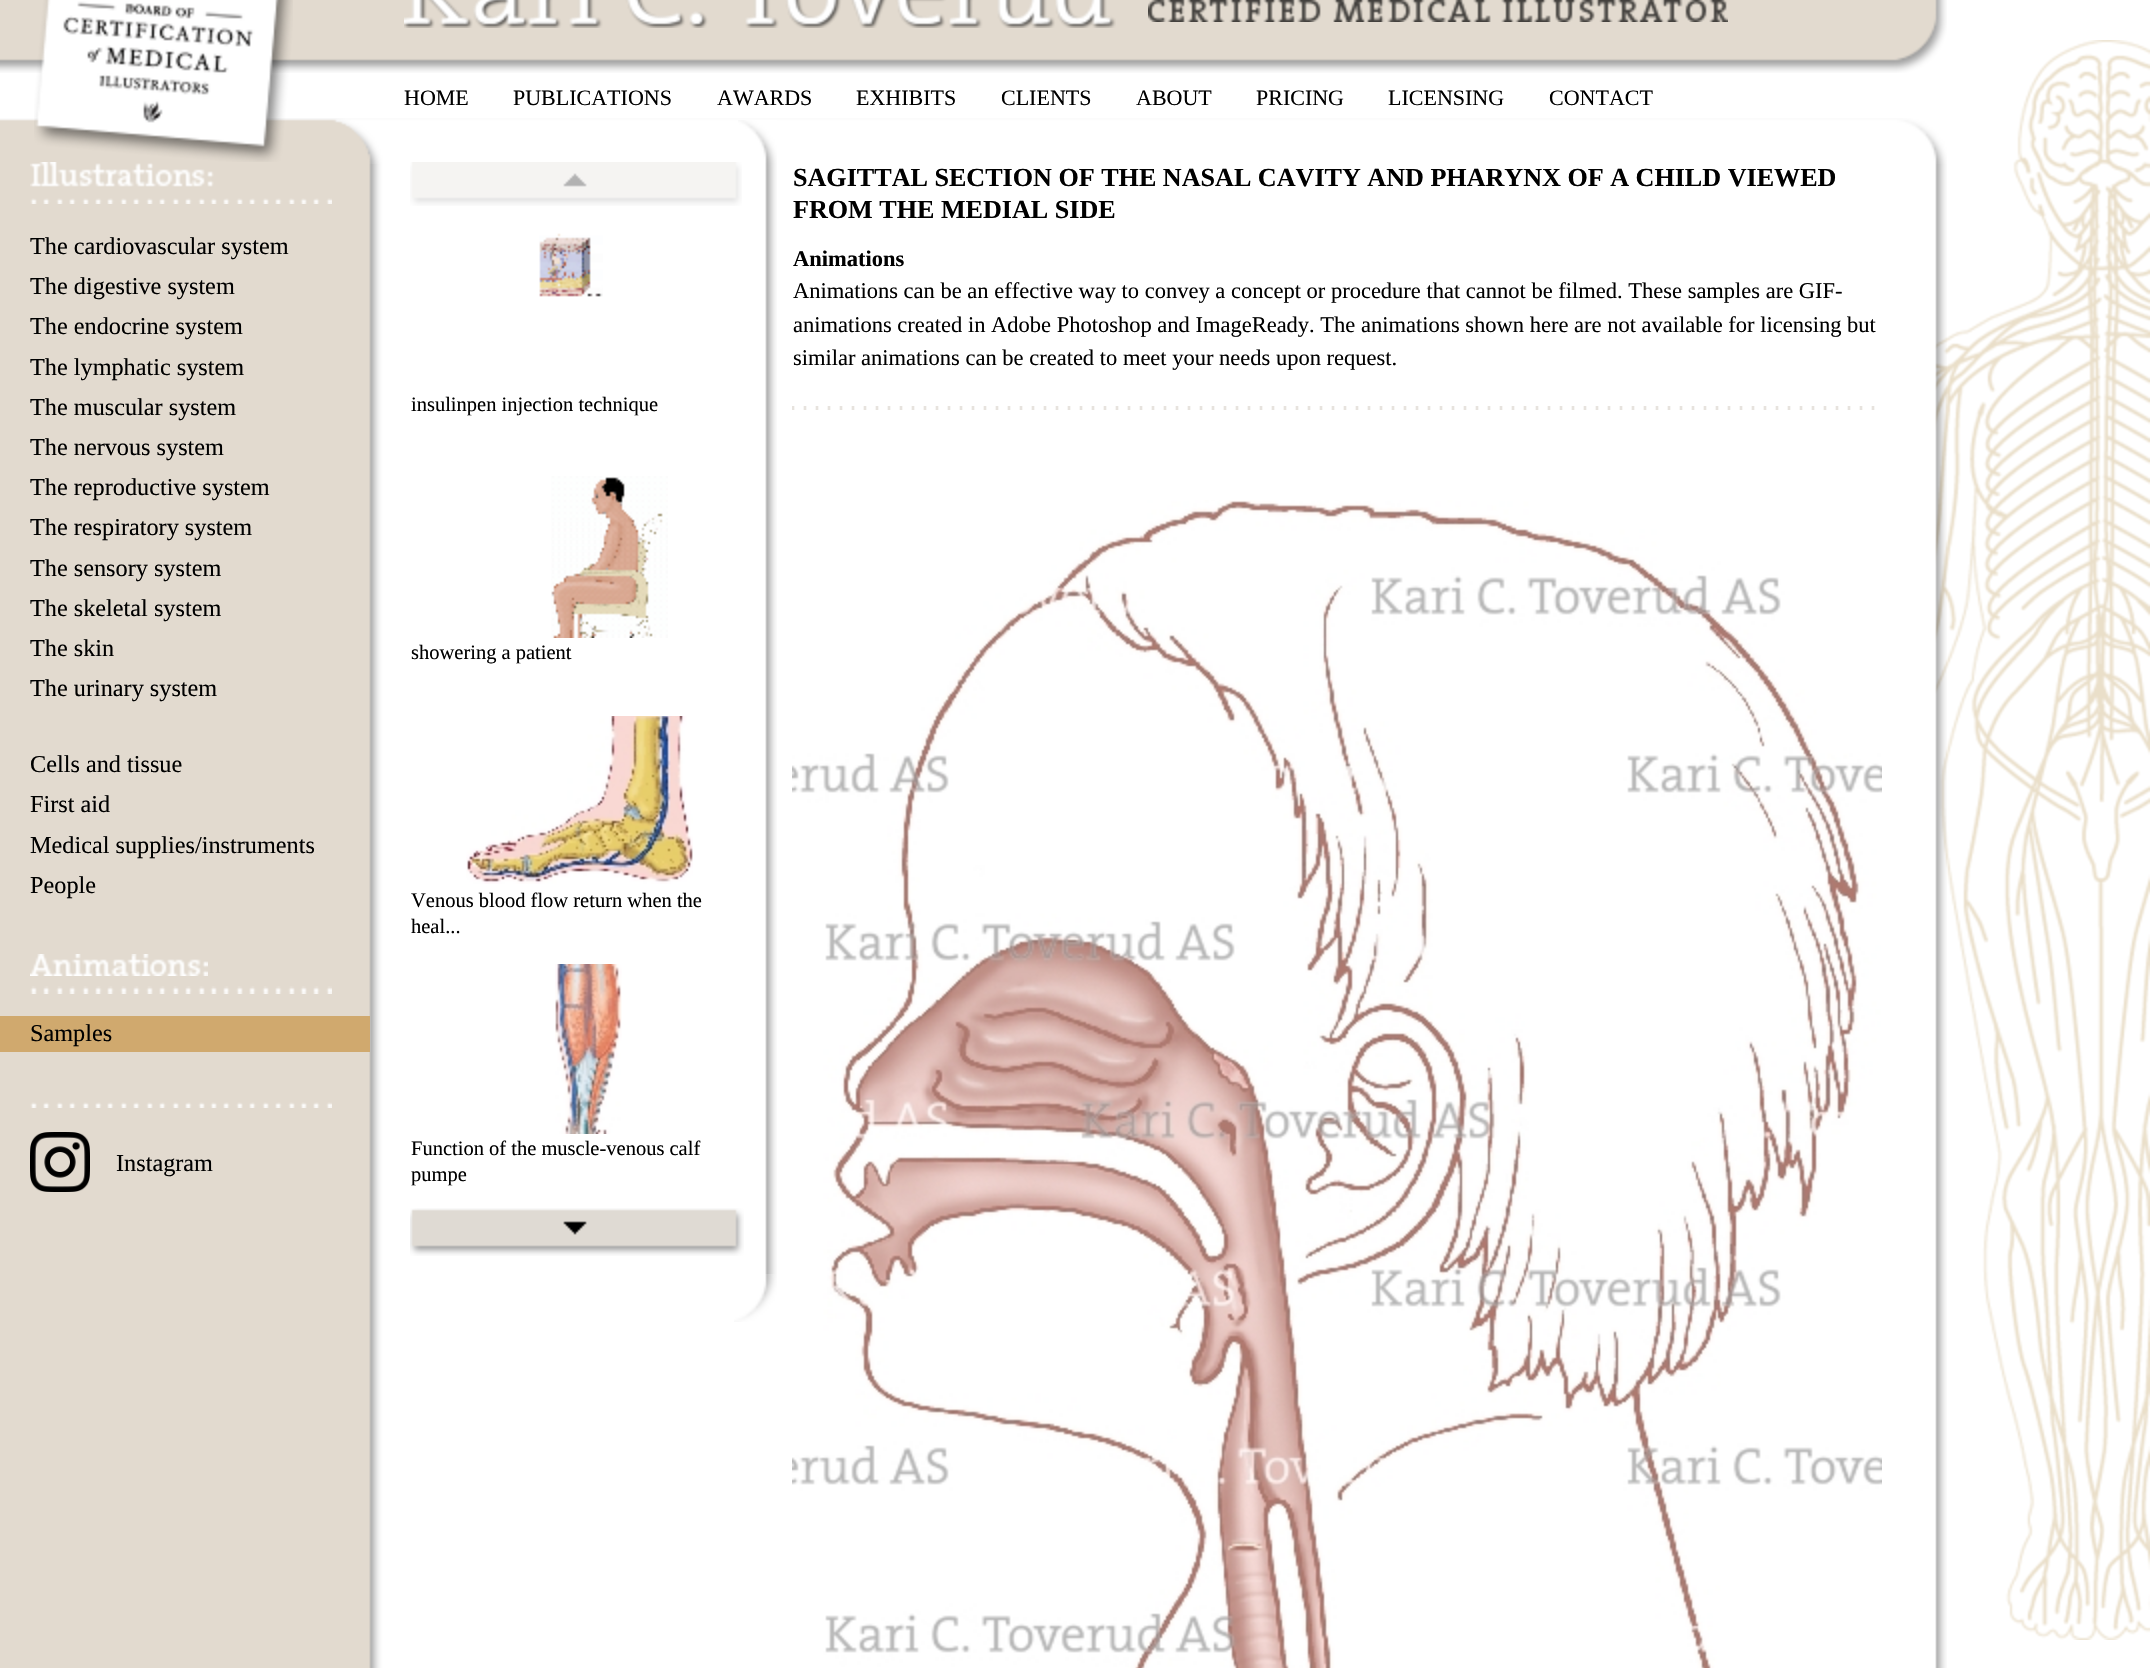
void draw(SkCanvas* canvas) {
	SkPaint paint;
	paint.setAntiAlias(true);
	canvas->clear(0xffffffff);
	canvas->drawImageRect(SkImages::DeferredFromEncodedData(SkData::MakeFromFileName("img1.png")), SkRect::MakeXYWH(1935, 40, 215, 1600), SkSamplingOptions());
	canvas->drawImageRect(SkImages::DeferredFromEncodedData(SkData::MakeFromFileName("img2.png")), SkRect::MakeXYWH(0, 164, 1947, 1504), SkSamplingOptions());
	canvas->drawImageRect(SkImages::DeferredFromEncodedData(SkData::MakeFromFileName("img5.png")), SkRect::MakeXYWH(0, 0, 1894, 73), SkSamplingOptions());
	canvas->drawImageRect(SkImages::DeferredFromEncodedData(SkData::MakeFromFileName("img8.png")), SkRect::MakeXYWH(0, 118, 1947, 46), SkSamplingOptions());
	canvas->drawImageRect(SkImages::DeferredFromEncodedData(SkData::MakeFromFileName("img3.png")), SkRect::MakeXYWH(34, 0, 259, 162), SkSamplingOptions());
	canvas->drawImageRect(SkImages::DeferredFromEncodedData(SkData::MakeFromFileName("img4.png")), SkRect::MakeXYWH(1894, 0, 53, 73), SkSamplingOptions());
	canvas->drawImageRect(SkImages::DeferredFromEncodedData(SkData::MakeFromFileName("img6.png")), SkRect::MakeXYWH(404, 0, 712, 28), SkSamplingOptions());
	canvas->drawImageRect(SkImages::DeferredFromEncodedData(SkData::MakeFromFileName("img7.png")), SkRect::MakeXYWH(1148, 0, 580, 22), SkSamplingOptions());
	SkFont f1(fontMgr->matchFamilyStyle("Liberation Serif", SkFontStyle::Normal()), 22);
	f1.setSubpixel(true);
	paint.setColor(0xff000000);
	canvas->drawString("HOME", 404, 105, f1, paint);
	canvas->drawString("PUBLICATIONS", 513, 105, f1, paint);
	canvas->drawString("AWARDS", 717, 105, f1, paint);
	canvas->drawString("EXHIBITS", 856, 105, f1, paint);
	canvas->drawString("CLIENTS", 1001, 105, f1, paint);
	canvas->drawString("ABOUT", 1136, 105, f1, paint);
	canvas->drawString("PRICING", 1256, 105, f1, paint);
	canvas->drawString("LICENSING", 1388, 105, f1, paint);
	canvas->drawString("CONTACT", 1549, 105, f1, paint);
	canvas->drawImageRect(SkImages::DeferredFromEncodedData(SkData::MakeFromFileName("img9.png")), SkRect::MakeXYWH(30, 162, 184, 25), SkSamplingOptions());
	canvas->drawImageRect(SkImages::DeferredFromEncodedData(SkData::MakeFromFileName("img10.png")), SkRect::MakeXYWH(30, 198, 302, 6), SkSamplingOptions());
	SkFont f2(fontMgr->matchFamilyStyle("Liberation Serif", SkFontStyle::Normal()), 24.25);
	f2.setSubpixel(true);
	canvas->drawString("The cardiovascular system", 30, 254, f2, paint);
	canvas->drawString("The digestive system", 30, 294, f2, paint);
	canvas->drawString("The endocrine system", 30, 334, f2, paint);
	canvas->drawString("The lymphatic system", 30, 375, f2, paint);
	canvas->drawString("The muscular system", 30, 415, f2, paint);
	canvas->drawString("The nervous system", 30, 455, f2, paint);
	canvas->drawString("The reproductive system", 30, 495, f2, paint);
	canvas->drawString("The respiratory system", 30, 535, f2, paint);
	canvas->drawString("The sensory system", 30, 576, f2, paint);
	canvas->drawString("The skeletal system", 30, 616, f2, paint);
	canvas->drawString("The skin", 30, 656, f2, paint);
	canvas->drawString("The urinary system", 30, 696, f2, paint);
	canvas->drawString("Cells and tissue", 30, 772, f2, paint);
	canvas->drawString("First aid", 30, 812, f2, paint);
	canvas->drawString("Medical supplies/instruments", 30, 853, f2, paint);
	canvas->drawString("People", 30, 893, f2, paint);
	canvas->drawImageRect(SkImages::DeferredFromEncodedData(SkData::MakeFromFileName("img11.png")), SkRect::MakeXYWH(30, 954, 178, 22), SkSamplingOptions());
	canvas->drawImageRect(SkImages::DeferredFromEncodedData(SkData::MakeFromFileName("img12.png")), SkRect::MakeXYWH(30, 986, 302, 8), SkSamplingOptions());
	paint.setColor(0xffd0a96e);
	canvas->drawRect(SkRect::MakeXYWH(0, 1016, 370, 36), paint);
	paint.setColor(0xff000000);
	canvas->drawString("Samples", 30, 1041, f2, paint);
	canvas->drawImageRect(SkImages::DeferredFromEncodedData(SkData::MakeFromFileName("img10.png")), SkRect::MakeXYWH(30, 1102, 302, 6), SkSamplingOptions());
	canvas->drawImageRect(SkImages::DeferredFromEncodedData(SkData::MakeFromFileName("img13.png")), SkRect::MakeXYWH(30, 1132, 60, 60), SkSamplingOptions());
	canvas->drawString("Instagram", 116, 1171, f2, paint);
	SkFont f3(fontMgr->matchFamilyStyle("Liberation Serif", SkFontStyle::Bold()), 26.1);
	f3.setSubpixel(true);
	canvas->drawString("SAGITTAL SECTION OF THE NASAL CAVITY AND PHARYNX OF A CHILD VIEWED", 793, 186, f3, paint);
	canvas->drawString("FROM THE MEDIAL SIDE", 793, 218, f3, paint);
	SkFont f4(fontMgr->matchFamilyStyle("Liberation Serif", SkFontStyle::Bold()), 22.5);
	f4.setSubpixel(true);
	canvas->drawString("Animations", 793, 266, f4, paint);
	SkFont f5(fontMgr->matchFamilyStyle("Liberation Serif", SkFontStyle::Normal()), 22.5);
	f5.setSubpixel(true);
	canvas->drawString("Animations can be an effective way to convey a concept or procedure that cannot be filmed. These samples are GIF-", 793, 298, f5, paint);
	canvas->drawString("animations created in Adobe Photoshop and ImageReady. The animations shown here are not available for licensing but", 793, 332, f5, paint);
	canvas->drawString("similar animations can be created to meet your needs upon request.", 793, 365, f5, paint);
	canvas->drawImageRect(SkImages::DeferredFromEncodedData(SkData::MakeFromFileName("img14.png")), SkRect::MakeXYWH(792, 406, 1083, 4), SkSamplingOptions());
	canvas->drawImageRect(SkImages::DeferredFromEncodedData(SkData::MakeFromFileName("img15.png")), SkRect::MakeXYWH(792, 500, 1090, 1168), SkSamplingOptions());
	canvas->drawImageRect(SkImages::DeferredFromEncodedData(SkData::MakeFromFileName("img16.png")), SkRect::MakeXYWH(738, 120, 39, 1154), SkSamplingOptions());
	canvas->drawImageRect(SkImages::DeferredFromEncodedData(SkData::MakeFromFileName("img17.png")), SkRect::MakeXYWH(734, 1274, 43, 48), SkSamplingOptions());
	canvas->drawImageRect(SkImages::DeferredFromEncodedData(SkData::MakeFromFileName("img18.png")), SkRect::MakeXYWH(410, 162, 332, 44), SkSamplingOptions());
	canvas->drawImageRect(SkImages::DeferredFromEncodedData(SkData::MakeFromFileName("img19.png")), SkRect::MakeXYWH(539, 233, 64, 64), SkSamplingOptions());
	SkFont f6(fontMgr->matchFamilyStyle("Liberation Serif", SkFontStyle::Normal()), 20.5);
	f6.setSubpixel(true);
	canvas->drawString("insulinpen injection technique", 411, 411, f6, paint);
	canvas->drawImageRect(SkImages::DeferredFromEncodedData(SkData::MakeFromFileName("img20.png")), SkRect::MakeXYWH(551, 476, 117, 162), SkSamplingOptions());
	canvas->drawString("showering a patient", 411, 659, f6, paint);
	canvas->drawImageRect(SkImages::DeferredFromEncodedData(SkData::MakeFromFileName("img21.png")), SkRect::MakeXYWH(466, 716, 227, 168), SkSamplingOptions());
	canvas->drawString("Venous blood flow return when the", 411, 907, f6, paint);
	canvas->drawString("heal...", 411, 933, f6, paint);
	canvas->drawImageRect(SkImages::DeferredFromEncodedData(SkData::MakeFromFileName("img22.png")), SkRect::MakeXYWH(555, 964, 67, 170), SkSamplingOptions());
	canvas->drawString("Function of the muscle-venous calf", 411, 1155, f6, paint);
	canvas->drawString("pumpe", 411, 1181, f6, paint);
	canvas->drawImageRect(SkImages::DeferredFromEncodedData(SkData::MakeFromFileName("img23.png")), SkRect::MakeXYWH(410, 1208, 334, 48), SkSamplingOptions());
}
